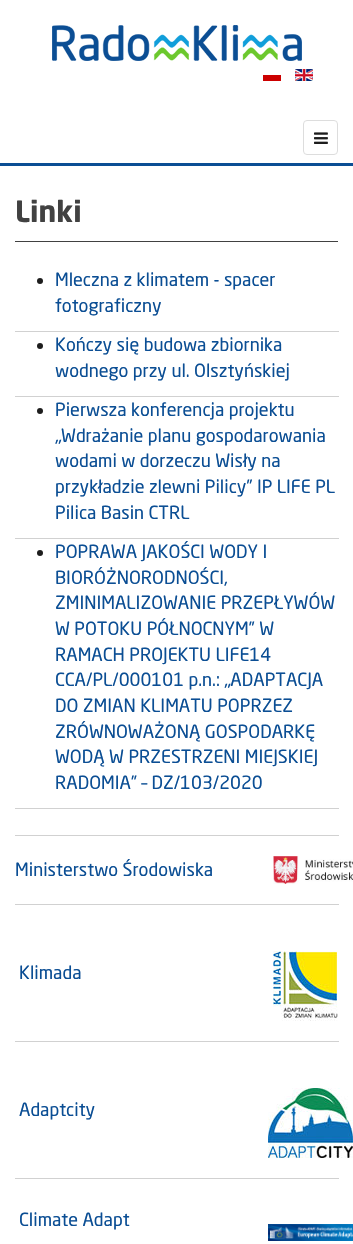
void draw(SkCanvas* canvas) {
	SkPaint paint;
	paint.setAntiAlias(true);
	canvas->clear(0xffffffff);
	canvas->drawImageRect(SkImages::DeferredFromEncodedData(SkData::MakeFromFileName("img1.png")), SkRect::MakeXYWH(52, 25, 250, 36), SkSamplingOptions());
	paint.setColor(0xffcc0000);
	canvas->drawRect(SkRect::MakeXYWH(263, 75, 18, 6), paint);
	canvas->drawImageRect(SkImages::DeferredFromEncodedData(SkData::MakeFromFileName("img2.png")), SkRect::MakeXYWH(295, 69, 18, 12), SkSamplingOptions());
	paint.setColor(0xff0b4e94);
	canvas->drawRect(SkRect::MakeXYWH(0, 163, 353, 3), paint);
	paint.setStroke(true);
	paint.setStrokeWidth(1);
	paint.setColor(0xffdddddd);
	canvas->drawRoundRect(SkRect::MakeXYWH(303.5, 120.5, 34, 34), 3.5, 3.5, paint);
	canvas->drawImageRect(SkImages::DeferredFromEncodedData(SkData::MakeFromFileName("img3.png")), SkRect::MakeXYWH(314, 132, 14, 12), SkSamplingOptions());
	paint.setStroke(false);
	paint.setColor(0xff414141);
	canvas->drawRect(SkRect::MakeXYWH(15, 241, 323, 1), paint);
	SkFont f1(fontMgr->matchFamilyStyle("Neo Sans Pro", SkFontStyle::Bold()), 29);
	f1.setSubpixel(true);
	canvas->drawString("Linki", 15, 222, f1, paint);
	paint.setColor(0xffd1d1d1);
	canvas->drawRect(SkRect::MakeXYWH(15, 331, 324, 1), paint);
	paint.setColor(0xff1d1d1d);
	canvas->drawCircle(40, 281, 3, paint);
	SkFont f2(fontMgr->matchFamilyStyle("Neo Sans Pro", SkFontStyle::Normal()), 18);
	f2.setSubpixel(true);
	paint.setColor(0xff0b4e94);
	canvas->drawString("Mleczna z klimatem - spacer", 55, 286, f2, paint);
	canvas->drawString("fotograficzny", 55, 312, f2, paint);
	paint.setColor(0xffd1d1d1);
	canvas->drawRect(SkRect::MakeXYWH(15, 396, 324, 1), paint);
	paint.setColor(0xff1d1d1d);
	canvas->drawCircle(40, 346, 3, paint);
	paint.setColor(0xff0b4e94);
	canvas->drawString("Kończy się budowa zbiornika", 55, 351, f2, paint);
	canvas->drawString("wodnego przy ul. Olsztyńskiej", 55, 377, f2, paint);
	paint.setColor(0xffd1d1d1);
	canvas->drawRect(SkRect::MakeXYWH(15, 538, 324, 1), paint);
	paint.setColor(0xff1d1d1d);
	canvas->drawCircle(40, 411, 3, paint);
	paint.setColor(0xff0b4e94);
	canvas->drawString("Pierwsza konferencja projektu", 55, 416, f2, paint);
	canvas->drawString("„Wdrażanie planu gospodarowania", 55, 442, f2, paint);
	canvas->drawString("wodami w dorzeczu Wisły na", 55, 467, f2, paint);
	canvas->drawString("przykładzie zlewni Pilicy” IP LIFE PL", 55, 493, f2, paint);
	canvas->drawString("Pilica Basin CTRL", 55, 519, f2, paint);
	paint.setColor(0xffd1d1d1);
	canvas->drawRect(SkRect::MakeXYWH(15, 808, 324, 1), paint);
	paint.setColor(0xff1d1d1d);
	canvas->drawCircle(40, 553, 3, paint);
	paint.setColor(0xff0b4e94);
	canvas->drawString("POPRAWA JAKOŚCI WODY I", 55, 558, f2, paint);
	canvas->drawString("BIORÓŻNORODNOŚCI,", 55, 584, f2, paint);
	canvas->drawString("ZMINIMALIZOWANIE PRZEPŁYWÓW", 55, 609, f2, paint);
	canvas->drawString("W POTOKU PÓŁNOCNYM” W", 55, 635, f2, paint);
	canvas->drawString("RAMACH PROJEKTU LIFE14", 55, 661, f2, paint);
	canvas->drawString("CCA/PL/000101 p.n.: „ADAPTACJA", 55, 686, f2, paint);
	canvas->drawString("DO ZMIAN KLIMATU POPRZEZ", 55, 712, f2, paint);
	canvas->drawString("ZRÓWNOWAŻONĄ GOSPODARKĘ", 55, 738, f2, paint);
	canvas->drawString("WODĄ W PRZESTRZENI MIEJSKIEJ", 55, 763, f2, paint);
	canvas->drawString("RADOMIA” – DZ/103/2020", 55, 789, f2, paint);
	paint.setColor(0xffd1d1d1);
	canvas->drawRect(SkRect::MakeXYWH(15, 835, 324, 1), paint);
	canvas->drawRect(SkRect::MakeXYWH(15, 904, 324, 1), paint);
	canvas->drawImageRect(SkImages::DeferredFromEncodedData(SkData::MakeFromFileName("img4.png")), SkRect::MakeXYWH(273, 856, 80, 28), SkSamplingOptions());
	paint.setColor(0xff0b4e94);
	canvas->drawString("Ministerstwo Środowiska", 15, 876, f2, paint);
	paint.setColor(0xffd1d1d1);
	canvas->drawRect(SkRect::MakeXYWH(15, 1041, 324, 1), paint);
	canvas->drawImageRect(SkImages::DeferredFromEncodedData(SkData::MakeFromFileName("img5.png")), SkRect::MakeXYWH(273, 951, 65, 70), SkSamplingOptions());
	paint.setColor(0xff0b4e94);
	canvas->drawString("Klimada", 19, 979, f2, paint);
	paint.setColor(0xffd1d1d1);
	canvas->drawRect(SkRect::MakeXYWH(15, 1178, 324, 1), paint);
	canvas->drawImageRect(SkImages::DeferredFromEncodedData(SkData::MakeFromFileName("img6.png")), SkRect::MakeXYWH(268, 1088, 85, 70), SkSamplingOptions());
	paint.setColor(0xff0b4e94);
	canvas->drawString("Adaptcity", 19, 1116, f2, paint);
	canvas->drawString("Climate Adapt", 19, 1226, f2, paint);
	canvas->drawImageRect(SkImages::DeferredFromEncodedData(SkData::MakeFromFileName("img7.png")), SkRect::MakeXYWH(268, 1224, 85, 17), SkSamplingOptions());
}
